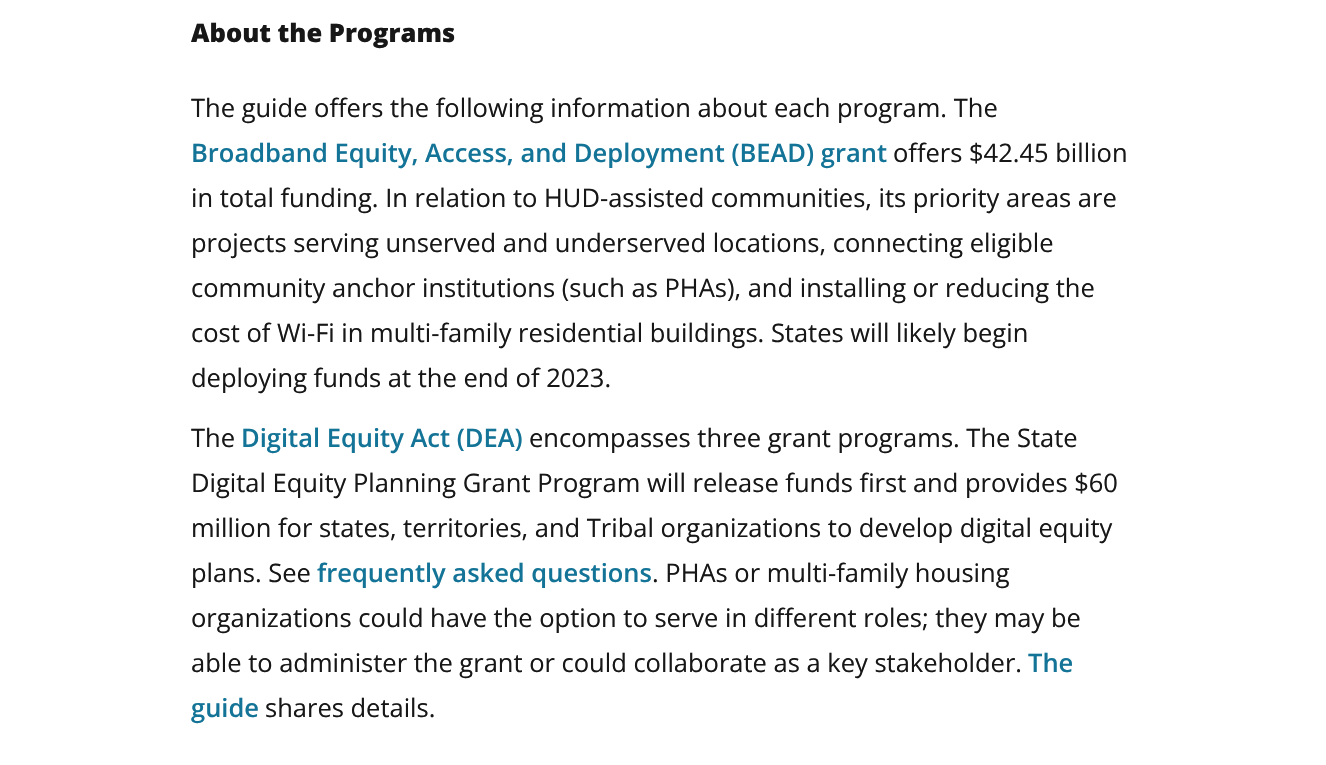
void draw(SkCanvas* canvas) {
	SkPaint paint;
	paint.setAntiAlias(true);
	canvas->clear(0xffffffff);
	SkFont f1(fontMgr->matchFamilyStyle("Open Sans", SkFontStyle(800, SkFontStyle::kNormal_Width, SkFontStyle::kUpright_Slant)), 25.5);
	f1.setSubpixel(true);
	paint.setColor(0xff171717);
	canvas->drawString("About the Programs", 191, 42, f1, paint);
	SkFont f2(fontMgr->matchFamilyStyle("Open Sans", SkFontStyle::Normal()), 25.5);
	f2.setSubpixel(true);
	canvas->drawString("The guide offers the following information about each program. The", 191, 117, f2, paint);
	SkFont f3(fontMgr->matchFamilyStyle("Open Sans", SkFontStyle(600, SkFontStyle::kNormal_Width, SkFontStyle::kUpright_Slant)), 25.5);
	f3.setSubpixel(true);
	paint.setColor(0xff147497);
	canvas->drawString("Broadband Equity, Access, and Deployment (BEAD) grant", 191, 162, f3, paint);
	paint.setColor(0xff171717);
	canvas->drawString("offers $42.45 billion", 893, 162, f2, paint);
	canvas->drawString("in total funding. In relation to HUD-assisted communities, its priority areas are", 191, 207, f2, paint);
	canvas->drawString("projects serving unserved and underserved locations, connecting eligible", 191, 252, f2, paint);
	canvas->drawString("community anchor institutions (such as PHAs), and installing or reducing the", 191, 297, f2, paint);
	canvas->drawString("cost of Wi-Fi in multi-family residential buildings. States will likely begin", 191, 342, f2, paint);
	canvas->drawString("deploying funds at the end of 2023.", 191, 387, f2, paint);
	canvas->drawString("The", 191, 447, f2, paint);
	paint.setColor(0xff147497);
	canvas->drawString("Digital Equity Act (DEA)", 241, 447, f3, paint);
	paint.setColor(0xff171717);
	canvas->drawString("encompasses three grant programs. The State", 529, 447, f2, paint);
	canvas->drawString("Digital Equity Planning Grant Program will release funds first and provides $60", 191, 492, f2, paint);
	canvas->drawString("million for states, territories, and Tribal organizations to develop digital equity", 191, 537, f2, paint);
	canvas->drawString("plans. See", 191, 582, f2, paint);
	paint.setColor(0xff147497);
	canvas->drawString("frequently asked questions", 317, 582, f3, paint);
	paint.setColor(0xff171717);
	canvas->drawString(". PHAs or multi-family housing", 652, 582, f2, paint);
	canvas->drawString("organizations could have the option to serve in different roles; they may be", 191, 627, f2, paint);
	canvas->drawString("able to administer the grant or could collaborate as a key stakeholder.", 191, 672, f2, paint);
	paint.setColor(0xff147497);
	canvas->drawString("The", 1028, 672, f3, paint);
	canvas->save();
	canvas->clipRect(SkRect::MakeXYWH(191, 0, 945, 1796));
	canvas->drawString("guide", 191, 717, f3, paint);
	canvas->restore();
	paint.setColor(0xff171717);
	canvas->drawString("shares details.", 265, 717, f2, paint);
}
